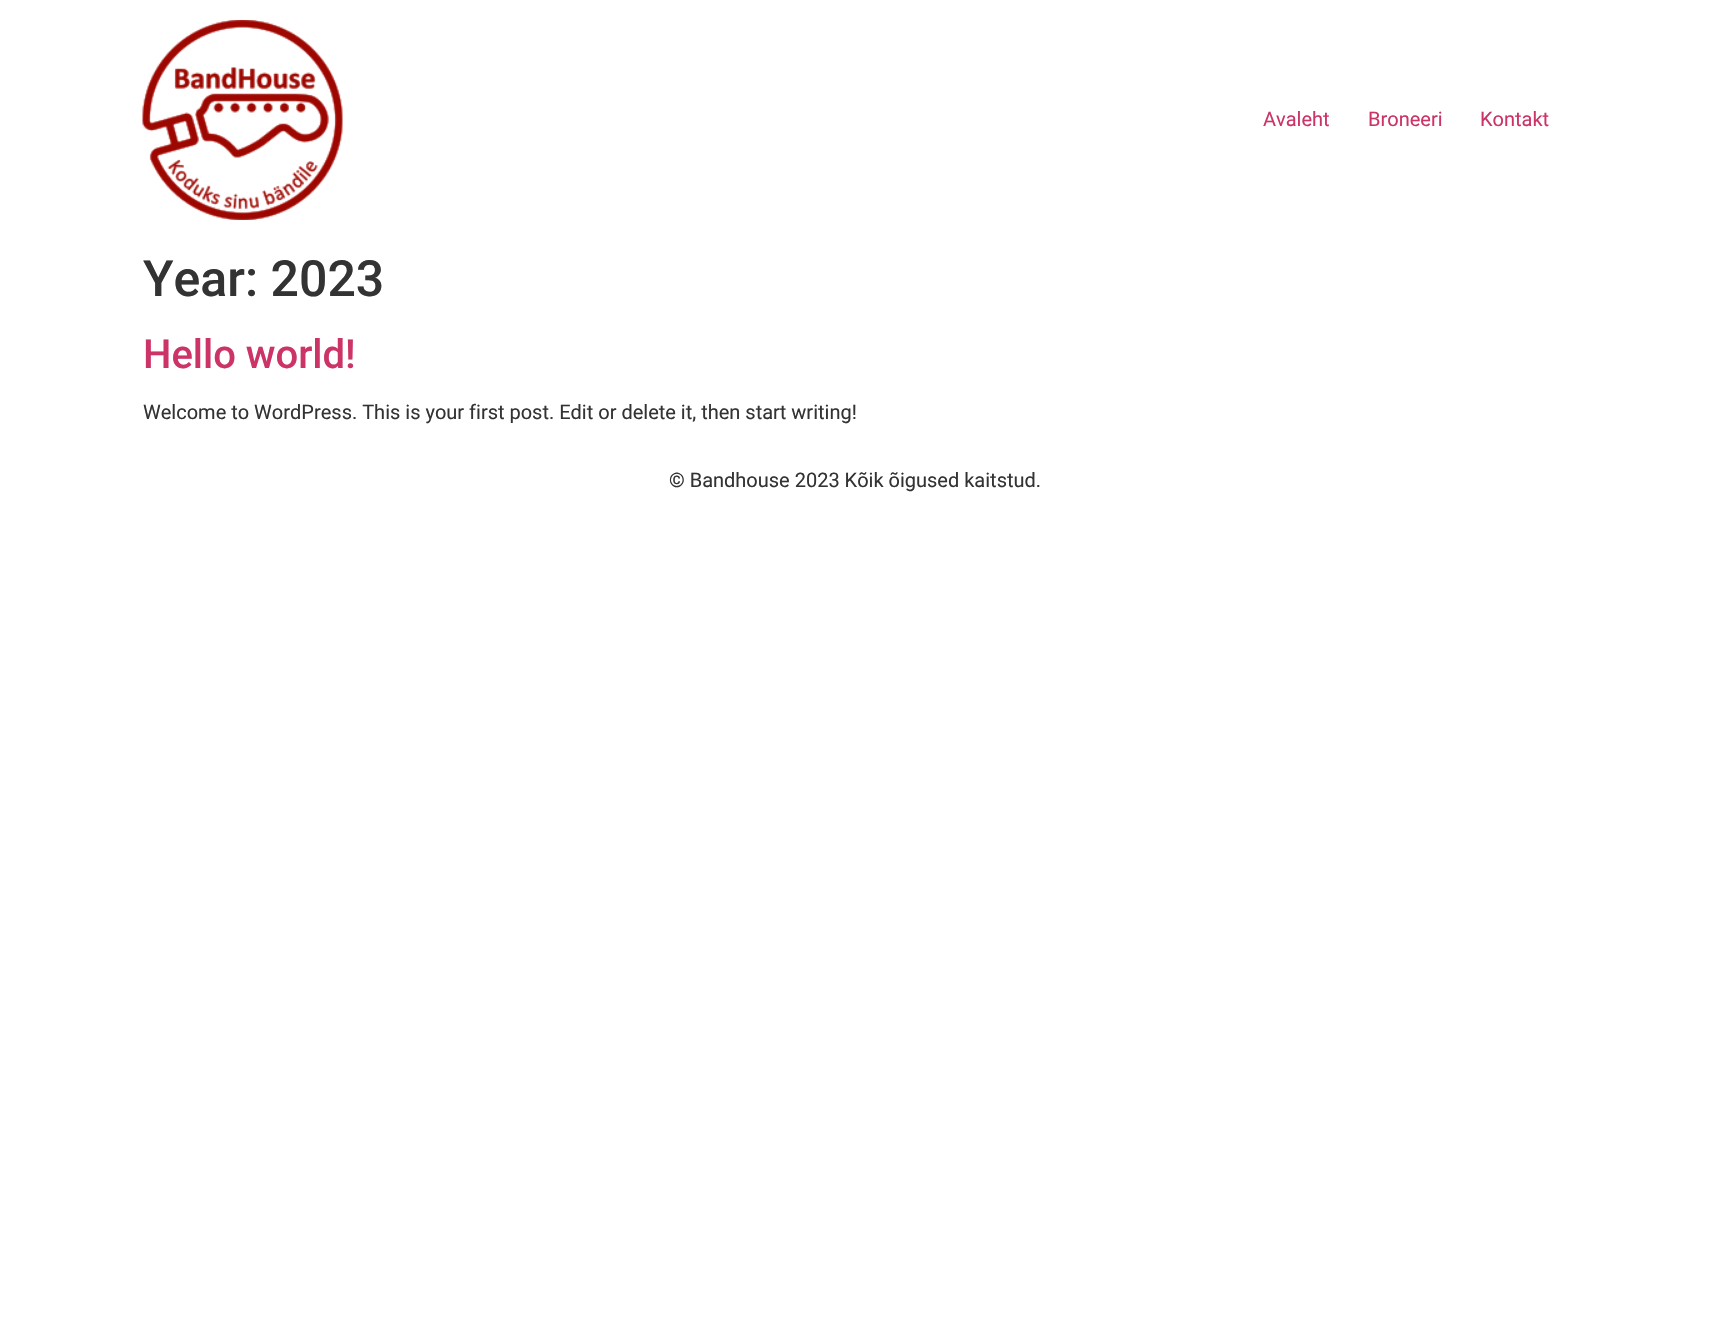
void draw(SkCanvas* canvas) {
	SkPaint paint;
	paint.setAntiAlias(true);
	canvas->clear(0xffffffff);
	canvas->drawImageRect(SkImages::DeferredFromEncodedData(SkData::MakeFromFileName("img1.png")), SkRect::MakeXYWH(142, 20, 201, 200), SkSamplingOptions());
	SkFont f1(fontMgr->matchFamilyStyle("Roboto", SkFontStyle::Normal()), 20);
	f1.setSubpixel(true);
	paint.setColor(0xffcc3366);
	canvas->drawString("Avaleht", 1263, 126, f1, paint);
	canvas->drawString("Broneeri", 1368, 126, f1, paint);
	canvas->drawString("Kontakt", 1480, 126, f1, paint);
	SkFont f2(fontMgr->matchFamilyStyle("Roboto", SkFontStyle(500, SkFontStyle::kNormal_Width, SkFontStyle::kUpright_Slant)), 50);
	f2.setSubpixel(true);
	paint.setColor(0xff333333);
	canvas->drawString("Year: 2023", 143, 296, f2, paint);
	SkFont f3(fontMgr->matchFamilyStyle("Roboto", SkFontStyle(500, SkFontStyle::kNormal_Width, SkFontStyle::kUpright_Slant)), 40);
	f3.setSubpixel(true);
	paint.setColor(0xffcc3366);
	canvas->drawString("Hello world!", 143, 368, f3, paint);
	paint.setColor(0xff333333);
	canvas->drawString("Welcome to WordPress. This is your first post. Edit or delete it, then start writing!", 143, 419, f1, paint);
	canvas->drawString("© Bandhouse 2023 Kõik õigused kaitstud.", 669, 487, f1, paint);
}
